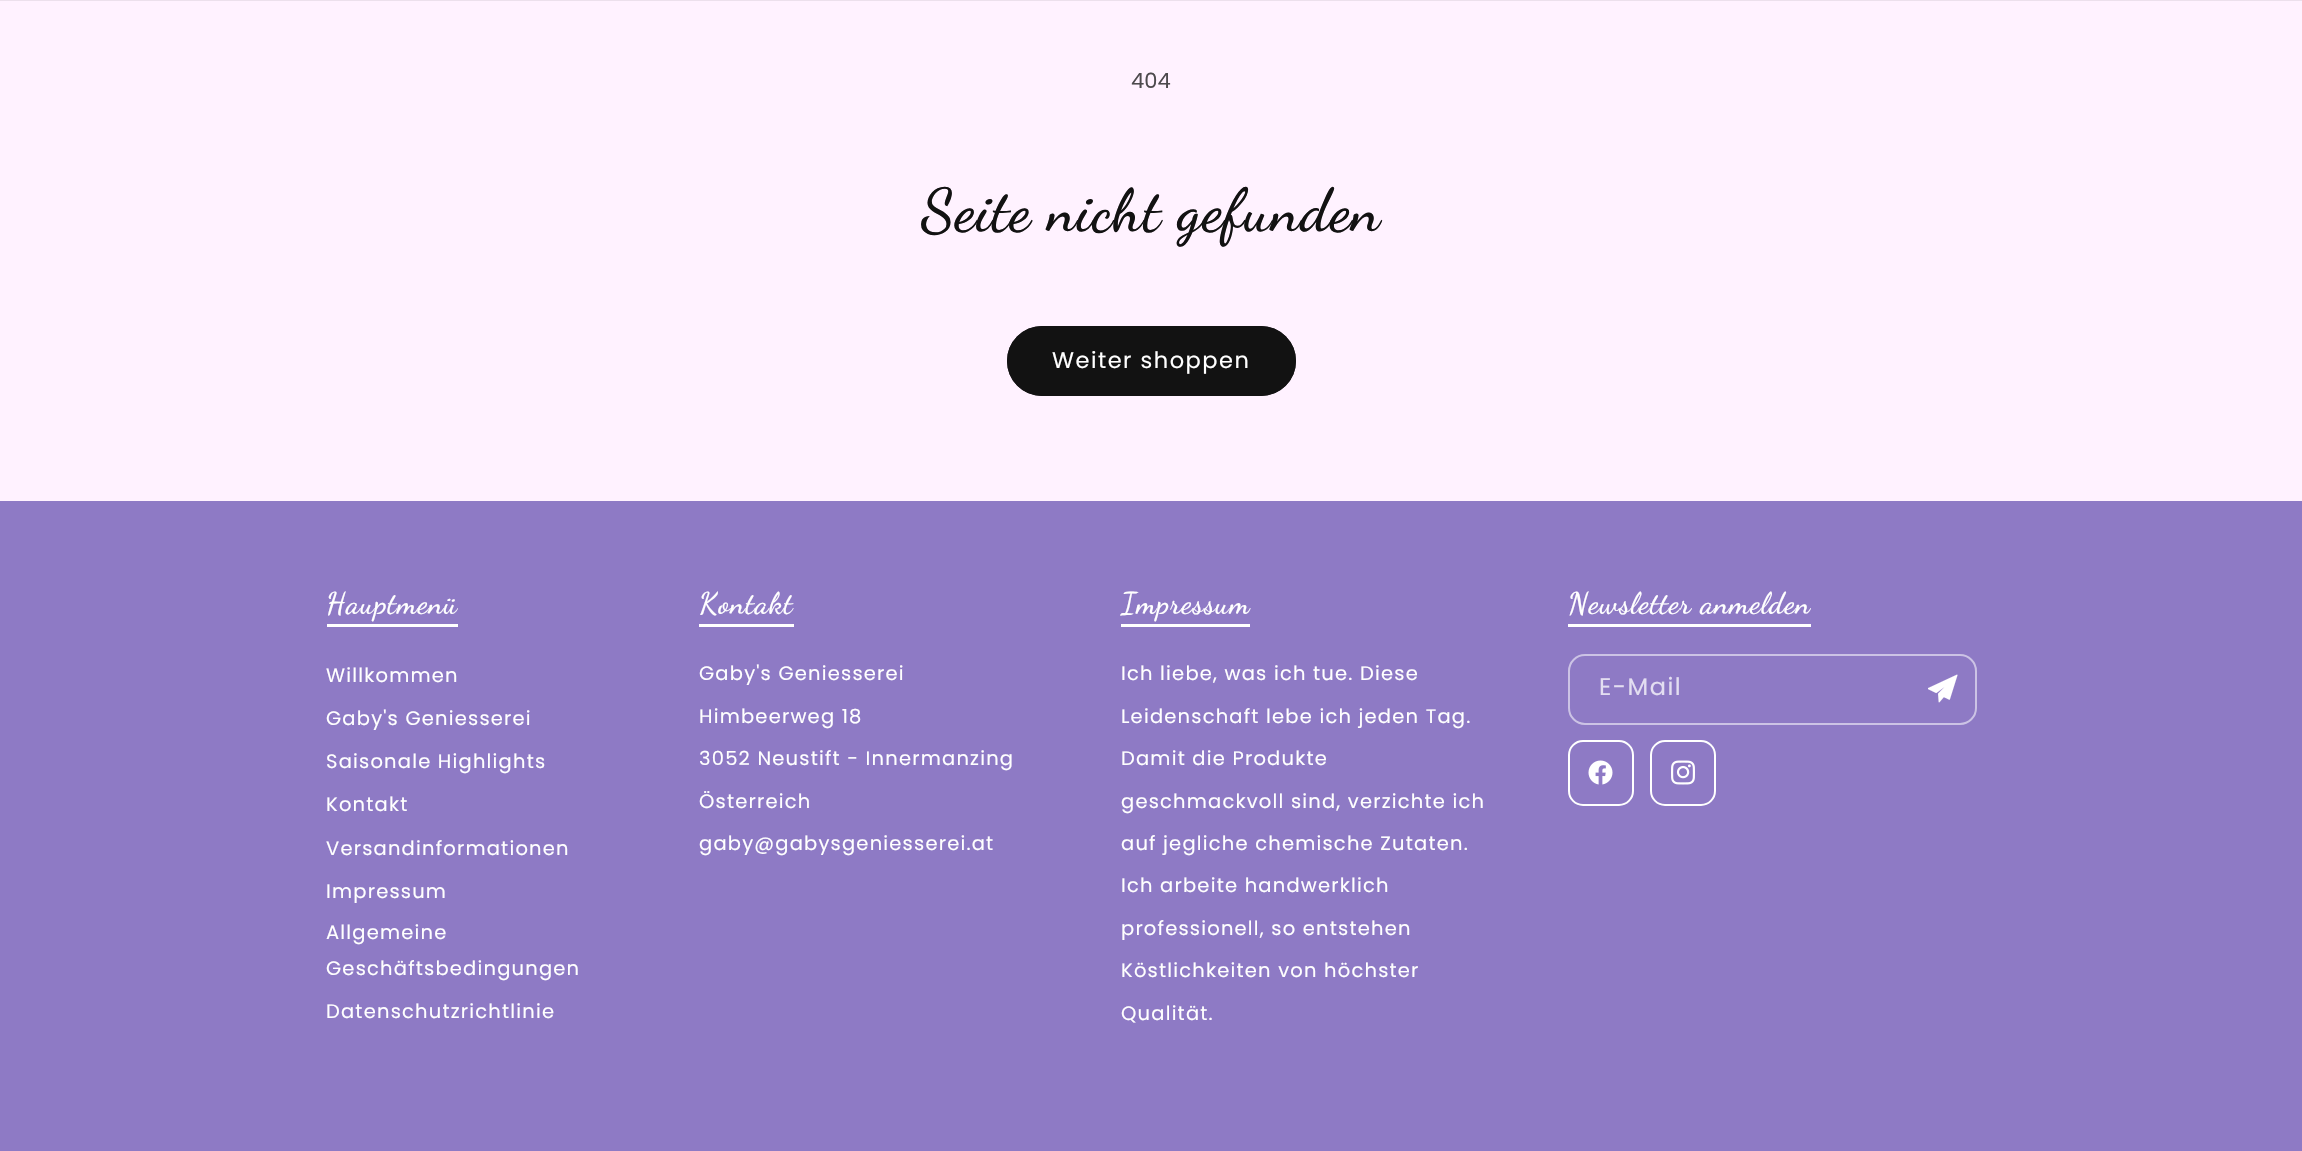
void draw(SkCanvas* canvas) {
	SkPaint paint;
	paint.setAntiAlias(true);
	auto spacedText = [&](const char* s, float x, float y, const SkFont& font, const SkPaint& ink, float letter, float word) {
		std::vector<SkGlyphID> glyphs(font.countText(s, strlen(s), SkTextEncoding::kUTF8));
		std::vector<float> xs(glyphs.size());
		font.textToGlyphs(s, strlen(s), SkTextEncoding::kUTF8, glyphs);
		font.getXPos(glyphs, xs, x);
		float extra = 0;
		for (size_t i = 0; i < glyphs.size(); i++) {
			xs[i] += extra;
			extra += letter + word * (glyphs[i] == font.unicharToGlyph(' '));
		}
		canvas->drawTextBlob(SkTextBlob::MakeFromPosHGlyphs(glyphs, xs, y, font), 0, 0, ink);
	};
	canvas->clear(0xfffff2ff);
	paint.setColor(0xffece0ec);
	canvas->drawRect(SkRect::MakeXYWH(0, 0, 2302, 1), paint);
	SkFont f1(fontMgr->matchFamilyStyle("Poppins", SkFontStyle::Normal()), 21);
	f1.setSubpixel(true);
	paint.setColor(0xff4d4a4d);
	canvas->drawString("404", 1131, 88, f1, paint);
	SkFont f2(fontMgr->matchFamilyStyle("Dancing Script", SkFontStyle(600, SkFontStyle::kNormal_Width, SkFontStyle::kUpright_Slant)), 60);
	f2.setSubpixel(true);
	paint.setColor(0xff121212);
	spacedText("Seite nicht gefunden", 921, 230, f2, paint, 0.9, 0);
	canvas->drawRoundRect(SkRect::MakeXYWH(1007, 326, 289, 70), 35, 35, paint);
	paint.setStroke(true);
	paint.setStrokeWidth(2);
	canvas->drawRoundRect(SkRect::MakeXYWH(1008, 327, 287, 68), 34, 34, paint);
	SkFont f3(fontMgr->matchFamilyStyle("Poppins", SkFontStyle::Normal()), 22.5);
	f3.setSubpixel(true);
	paint.setStroke(false);
	paint.setColor(0xffffffff);
	spacedText("Weiter shoppen", 1052, 368, f3, paint, 1.5, 0);
	paint.setColor(0xff8e7ac5);
	canvas->drawRect(SkRect::MakeXYWH(0, 501, 2302, 650), paint);
	SkFont f4(fontMgr->matchFamilyStyle("Dancing Script", SkFontStyle(600, SkFontStyle::kNormal_Width, SkFontStyle::kUpright_Slant)), 30);
	f4.setSubpixel(true);
	paint.setColor(0xffffffff);
	spacedText("Hauptmenü", 326, 613, f4, paint, 0.9, 0);
	canvas->drawRect(SkRect::MakeXYWH(327, 624, 131, 3), paint);
	SkFont f5(fontMgr->matchFamilyStyle("Poppins", SkFontStyle::Normal()), 19.5);
	f5.setSubpixel(true);
	spacedText("Willkommen", 326, 682, f5, paint, 1.2, 0);
	spacedText("Gaby's Geniesserei", 326, 725, f5, paint, 1.2, 0);
	spacedText("Saisonale Highlights", 326, 768, f5, paint, 1.2, 0);
	spacedText("Kontakt", 326, 811, f5, paint, 1.2, 0);
	spacedText("Versandinformationen", 326, 855, f5, paint, 1.2, 0);
	spacedText("Impressum", 326, 898, f5, paint, 1.2, 0);
	spacedText("Allgemeine", 326, 939, f5, paint, 1.2, 0);
	spacedText("Geschäftsbedingungen", 326, 975, f5, paint, 1.2, 0);
	spacedText("Datenschutzrichtlinie", 326, 1018, f5, paint, 1.2, 0);
	spacedText("Kontakt", 699, 613, f4, paint, 0.9, 0);
	canvas->drawRect(SkRect::MakeXYWH(699, 624, 95, 3), paint);
	spacedText("Gaby's Geniesserei", 699, 680, f5, paint, 1.2, 0);
	spacedText("Himbeerweg 18", 699, 723, f5, paint, 1.2, 0);
	spacedText("3052 Neustift - Innermanzing", 699, 765, f5, paint, 1.2, 0);
	spacedText("Österreich", 699, 808, f5, paint, 1.2, 0);
	spacedText("gaby@gabysgeniesserei.at", 699, 850, f5, paint, 1.2, 0);
	spacedText("Impressum", 1121, 613, f4, paint, 0.9, 0);
	canvas->drawRect(SkRect::MakeXYWH(1121, 624, 129, 3), paint);
	spacedText("Ich liebe, was ich tue. Diese", 1121, 680, f5, paint, 1.2, 0);
	spacedText("Leidenschaft lebe ich jeden Tag.", 1121, 723, f5, paint, 1.2, 0);
	spacedText("Damit die Produkte", 1121, 765, f5, paint, 1.2, 0);
	spacedText("geschmackvoll sind, verzichte ich", 1121, 808, f5, paint, 1.2, 0);
	spacedText("auf jegliche chemische Zutaten.", 1121, 850, f5, paint, 1.2, 0);
	spacedText("Ich arbeite handwerklich", 1121, 892, f5, paint, 1.2, 0);
	spacedText("professionell, so entstehen", 1121, 935, f5, paint, 1.2, 0);
	spacedText("Köstlichkeiten von höchster", 1121, 977, f5, paint, 1.2, 0);
	spacedText("Qualität.", 1121, 1020, f5, paint, 1.2, 0);
	spacedText("Newsletter anmelden", 1568, 613, f4, paint, 0.9, 0);
	canvas->drawRect(SkRect::MakeXYWH(1568, 624, 243, 3), paint);
	paint.setStroke(true);
	paint.setColor(0xffccc3e5);
	canvas->drawRoundRect(SkRect::MakeXYWH(1569, 655, 407, 69), 16, 16, paint);
	SkFont f6(fontMgr->matchFamilyStyle("Poppins", SkFontStyle::Normal()), 24);
	f6.setSubpixel(true);
	paint.setStroke(false);
	paint.setColor(0xffe3def1);
	spacedText("E-Mail", 1599, 695, f6, paint, 1.5, 0);
	canvas->drawImageRect(SkImages::DeferredFromEncodedData(SkData::MakeFromFileName("img1.png")), SkRect::MakeXYWH(1928, 674, 30, 29), SkSamplingOptions());
	paint.setStroke(true);
	paint.setColor(0xffffffff);
	canvas->drawRoundRect(SkRect::MakeXYWH(1569, 741, 64, 64), 14, 14, paint);
	canvas->drawImageRect(SkImages::DeferredFromEncodedData(SkData::MakeFromFileName("img2.png")), SkRect::MakeXYWH(1588, 760, 25, 25), SkSamplingOptions());
	canvas->drawRoundRect(SkRect::MakeXYWH(1651, 741, 64, 64), 14, 14, paint);
	canvas->drawImageRect(SkImages::DeferredFromEncodedData(SkData::MakeFromFileName("img3.png")), SkRect::MakeXYWH(1671, 760, 24, 25), SkSamplingOptions());
}
